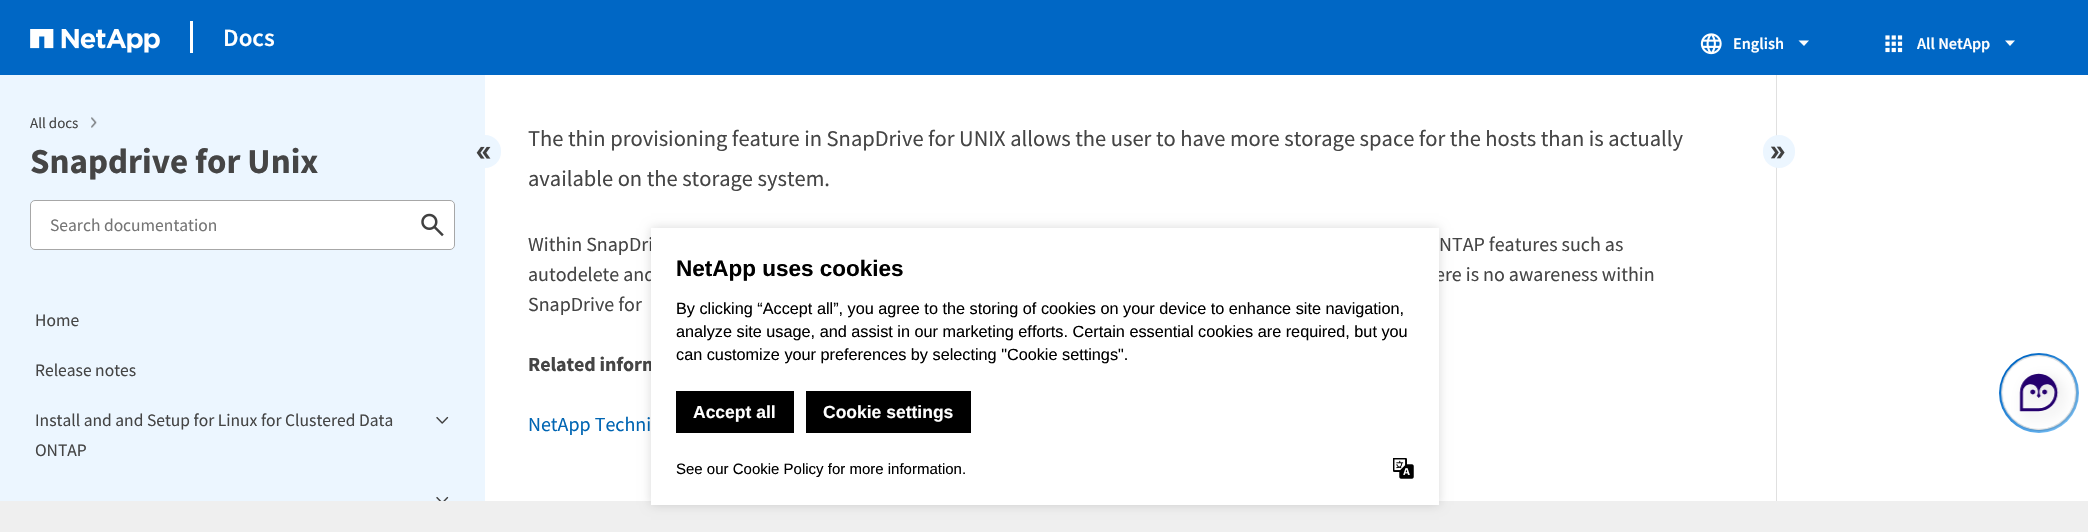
void draw(SkCanvas* canvas) {
	SkPaint paint;
	paint.setAntiAlias(true);
	auto spacedText = [&](const char* s, float x, float y, const SkFont& font, const SkPaint& ink, float letter, float word) {
		std::vector<SkGlyphID> glyphs(font.countText(s, strlen(s), SkTextEncoding::kUTF8));
		std::vector<float> xs(glyphs.size());
		font.textToGlyphs(s, strlen(s), SkTextEncoding::kUTF8, glyphs);
		font.getXPos(glyphs, xs, x);
		float extra = 0;
		for (size_t i = 0; i < glyphs.size(); i++) {
			xs[i] += extra;
			extra += letter + word * (glyphs[i] == font.unicharToGlyph(' '));
		}
		canvas->drawTextBlob(SkTextBlob::MakeFromPosHGlyphs(glyphs, xs, y, font), 0, 0, ink);
	};
	auto svgPath = [&](const char* data, bool evenOdd = false) {
		SkPath result = *SkParsePath::FromSVGString(data);
		if (evenOdd) result.setFillType(SkPathFillType::kEvenOdd);
		return result;
	};
	canvas->clear(0xffffffff);
	paint.setColor(0xff0067c5);
	canvas->drawRect(SkRect::MakeXYWH(0, 0, 2088, 75), paint);
	canvas->drawImageRect(SkImages::DeferredFromEncodedData(SkData::MakeFromFileName("img1.png")), SkRect::MakeXYWH(30, 29, 130, 24), SkSamplingOptions());
	paint.setColor(0xffffffff);
	canvas->drawRect(SkRect::MakeXYWH(190, 21, 3, 32), paint);
	SkFont f1(fontMgr->matchFamilyStyle("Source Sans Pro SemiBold", SkFontStyle(600, SkFontStyle::kNormal_Width, SkFontStyle::kUpright_Slant)), 25);
	f1.setSubpixel(true);
	canvas->drawString("Docs", 223, 46, f1, paint);
	canvas->drawImageRect(SkImages::DeferredFromEncodedData(SkData::MakeFromFileName("img2.png")), SkRect::MakeXYWH(1700, 33, 22, 22), SkSamplingOptions());
	SkFont f2(fontMgr->matchFamilyStyle("Source Sans Pro SemiBold", SkFontStyle(600, SkFontStyle::kNormal_Width, SkFontStyle::kUpright_Slant)), 16.25);
	f2.setSubpixel(true);
	canvas->drawString("English", 1733, 49, f2, paint);
	paint.setColor(0xfffdfdfd);
	canvas->drawPath(svgPath("M1804 46L1798.5 40.5H1809Z"), paint);
	canvas->drawImageRect(SkImages::DeferredFromEncodedData(SkData::MakeFromFileName("img3.png")), SkRect::MakeXYWH(1885, 35, 18, 18), SkSamplingOptions());
	paint.setColor(0xffffffff);
	canvas->drawString("All NetApp", 1917, 49, f2, paint);
	paint.setColor(0xfffdfdfd);
	canvas->drawPath(svgPath("M2010 46L2005 40.5H2015Z"), paint);
	paint.setColor(0xffecf6ff);
	canvas->drawRect(SkRect::MakeXYWH(0, 75, 485, 426), paint);
	SkFont f3(fontMgr->matchFamilyStyle("Source Sans Pro", SkFontStyle::Normal()), 15);
	f3.setSubpixel(true);
	paint.setColor(0xff454545);
	canvas->drawString("All docs", 30, 128, f3, paint);
	canvas->drawImageRect(SkImages::DeferredFromEncodedData(SkData::MakeFromFileName("img4.png")), SkRect::MakeXYWH(91, 117, 6, 11), SkSamplingOptions());
	SkFont f4(fontMgr->matchFamilyStyle("Source Sans Pro", SkFontStyle::Bold()), 35);
	f4.setSubpixel(true);
	canvas->drawString("Snapdrive for Unix", 30, 173, f4, paint);
	paint.setColor(0xffecf6ff);
	canvas->drawRoundRect(SkRect::MakeXYWH(469, 135, 32, 33), 16, 16, paint);
	canvas->drawImageRect(SkImages::DeferredFromEncodedData(SkData::MakeFromFileName("img5.png")), SkRect::MakeXYWH(476, 146, 15, 13), SkSamplingOptions());
	paint.setColor(0xffffffff);
	canvas->drawRoundRect(SkRect::MakeXYWH(30.5, 200.5, 424, 49), 4.5, 4.5, paint);
	paint.setStroke(true);
	paint.setStrokeWidth(1);
	paint.setColor(0xffa7a7a7);
	canvas->drawRoundRect(SkRect::MakeXYWH(30.5, 200.5, 424, 49), 4.5, 4.5, paint);
	SkFont f5(fontMgr->matchFamilyStyle("Source Sans Pro", SkFontStyle::Normal()), 17.5);
	f5.setSubpixel(true);
	paint.setStroke(false);
	paint.setColor(0xff757575);
	canvas->drawString("Search documentation", 50, 231, f5, paint);
	canvas->drawImageRect(SkImages::DeferredFromEncodedData(SkData::MakeFromFileName("img6.png")), SkRect::MakeXYWH(421, 213, 23, 24), SkSamplingOptions());
	paint.setColor(0xff454545);
	canvas->drawString("Home", 35, 326, f5, paint);
	canvas->drawString("Release notes", 35, 376, f5, paint);
	canvas->drawString("Install and and Setup for Linux for Clustered Data", 35, 426, f5, paint);
	canvas->drawImageRect(SkImages::DeferredFromEncodedData(SkData::MakeFromFileName("img7.png")), SkRect::MakeXYWH(436, 416, 13, 8), SkSamplingOptions());
	canvas->drawString("ONTAP", 35, 456, f5, paint);
	canvas->drawImageRect(SkImages::DeferredFromEncodedData(SkData::MakeFromFileName("img8.png")), SkRect::MakeXYWH(436, 496, 13, 5), SkSamplingOptions());
	SkFont f6(fontMgr->matchFamilyStyle("Source Sans Pro", SkFontStyle::Normal()), 22.5);
	f6.setSubpixel(true);
	canvas->drawString("The thin provisioning feature in SnapDrive for UNIX allows the user to have more storage space for the hosts than is actually", 528, 146, f6, paint);
	canvas->drawString("available on the storage system.", 528, 186, f6, paint);
	SkFont f7(fontMgr->matchFamilyStyle("Source Sans Pro", SkFontStyle::Normal()), 20);
	f7.setSubpixel(true);
	canvas->drawString("Within SnapDri", 528, 251, f7, paint);
	canvas->drawString("NTAP features such as", 1439, 251, f7, paint);
	canvas->drawString("autodelete and", 528, 281, f7, paint);
	canvas->drawString("ere is no awareness within", 1435, 281, f7, paint);
	canvas->drawString("SnapDrive for", 528, 311, f7, paint);
	SkFont f8(fontMgr->matchFamilyStyle("Source Sans Pro", SkFontStyle::Bold()), 20);
	f8.setSubpixel(true);
	spacedText("Related inform", 528, 371, f8, paint, -0.1, 0);
	paint.setColor(0xff0065b3);
	canvas->drawString("NetApp Techni", 528, 431, f7, paint);
	paint.setColor(0xffe0e0e0);
	canvas->drawRect(SkRect::MakeXYWH(1776, 75, 1, 426), paint);
	paint.setColor(0xffecf6ff);
	canvas->drawRoundRect(SkRect::MakeXYWH(1763, 135, 32, 33), 16, 16, paint);
	canvas->drawImageRect(SkImages::DeferredFromEncodedData(SkData::MakeFromFileName("img9.png")), SkRect::MakeXYWH(1771, 146, 14, 13), SkSamplingOptions());
	{
		const SkColor colors[] = {0xff0067c5, 0xff7ac3fa};
		const float stops[] = {0.18, 0.89};
		const SkPoint ends[] = {{1999, 353}, {2079, 433}};
		paint.setShader(SkGradientShader::MakeLinear(ends, colors, stops, 2, SkTileMode::kClamp));
		paint.setAlpha(255);
	}
	canvas->drawCircle(2039, 393, 40, paint);
	canvas->drawImageRect(SkImages::DeferredFromEncodedData(SkData::MakeFromFileName("img10.png")), SkRect::MakeXYWH(2001, 355, 77, 77), SkSamplingOptions());
	paint.setShader(nullptr);
	paint.setColor(0xffefefef);
	canvas->drawRect(SkRect::MakeXYWH(0, 501, 2088, 31), paint);
	paint.setColor(0x26000000);
	paint.setMaskFilter(SkMaskFilter::MakeBlur(kNormal_SkBlurStyle, 5));
	canvas->drawRect(SkRect::MakeXYWH(651, 228, 788, 277), paint);
	paint.setMaskFilter(nullptr);
	paint.setColor(0xffffffff);
	canvas->drawRect(SkRect::MakeXYWH(651, 228, 788, 277), paint);
	SkFont f9(fontMgr->matchFamilyStyle("Liberation Sans", SkFontStyle::Bold()), 22.5);
	f9.setSubpixel(true);
	paint.setColor(0xff000000);
	canvas->drawString("NetApp uses cookies", 676, 276, f9, paint);
	SkFont f10(fontMgr->matchFamilyStyle("Liberation Sans", SkFontStyle::Normal()), 16.25);
	f10.setSubpixel(true);
	canvas->drawString("By clicking “Accept all”, you agree to the storing of cookies on your device to enhance site navigation,", 676, 314, f10, paint);
	canvas->drawString("analyze site usage, and assist in our marketing efforts. Certain essential cookies are required, but you", 676, 337, f10, paint);
	canvas->drawString("can customize your preferences by selecting \"Cookie settings\".", 676, 360, f10, paint);
	canvas->drawRect(SkRect::MakeXYWH(676, 391, 118, 42), paint);
	SkFont f11(fontMgr->matchFamilyStyle("Liberation Sans", SkFontStyle::Bold()), 17.5);
	f11.setSubpixel(true);
	paint.setColor(0xffffffff);
	canvas->drawString("Accept all", 693, 418, f11, paint);
	paint.setColor(0xff000000);
	canvas->drawRect(SkRect::MakeXYWH(806, 391, 165, 42), paint);
	paint.setColor(0xffffffff);
	canvas->drawString("Cookie settings", 823, 418, f11, paint);
	SkFont f12(fontMgr->matchFamilyStyle("Liberation Sans", SkFontStyle::Normal()), 15);
	f12.setSubpixel(true);
	paint.setColor(0xff000000);
	canvas->drawString("See our Cookie Policy for more information.", 676, 474, f12, paint);
	canvas->drawImageRect(SkImages::DeferredFromEncodedData(SkData::MakeFromFileName("img11.png")), SkRect::MakeXYWH(1393, 458, 21, 21), SkSamplingOptions());
}
